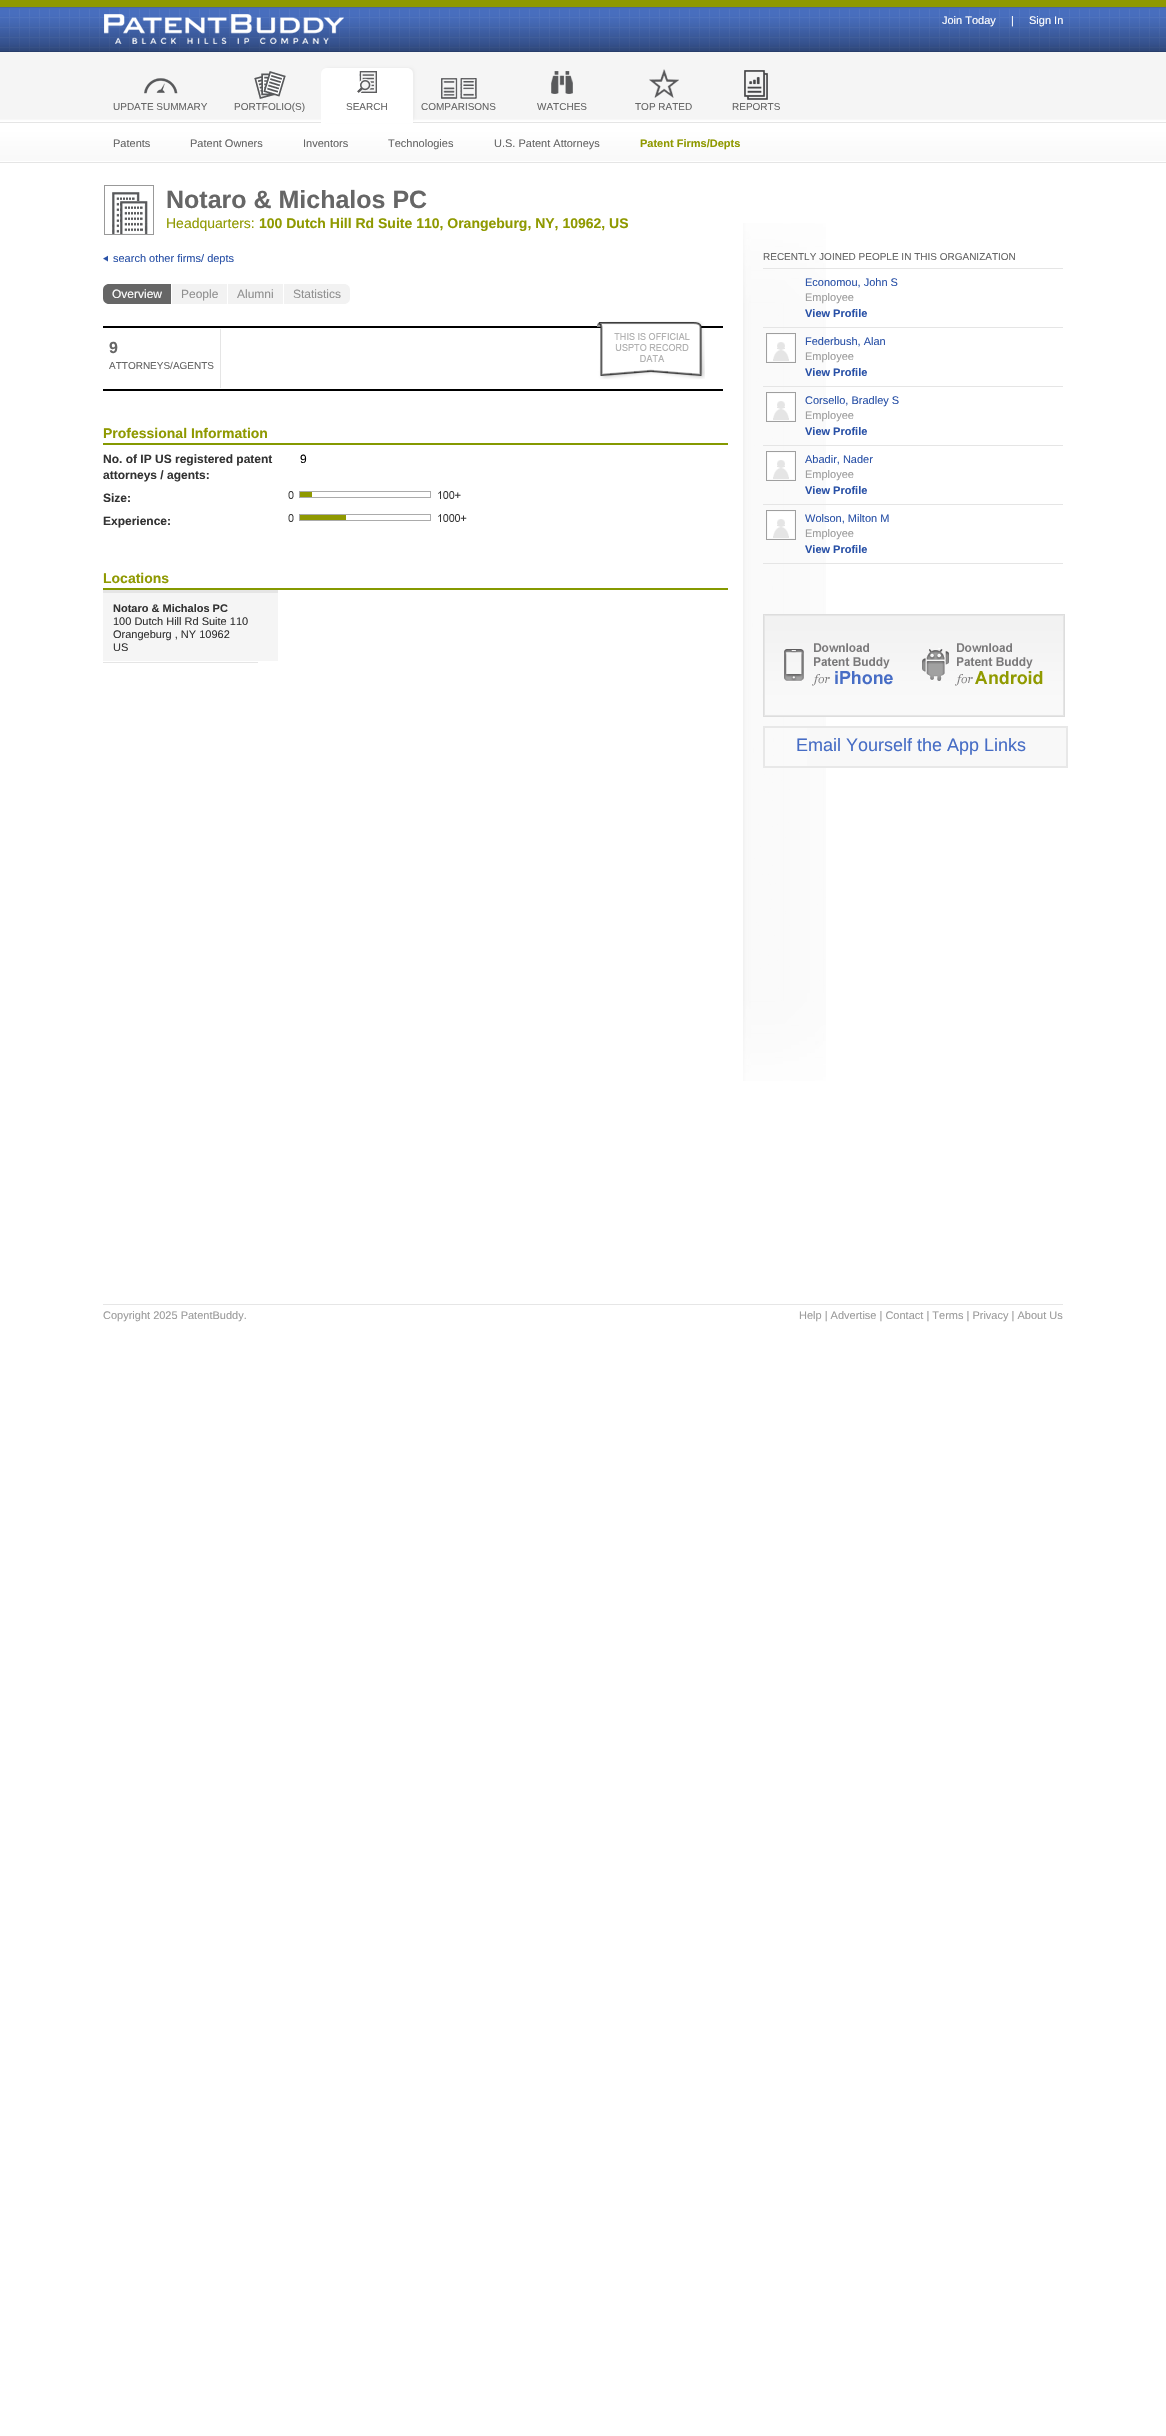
void draw(SkCanvas* canvas) {
	SkPaint paint;
	paint.setAntiAlias(true);
	auto svgPath = [&](const char* data, bool evenOdd = false) {
		SkPath result = *SkParsePath::FromSVGString(data);
		if (evenOdd) result.setFillType(SkPathFillType::kEvenOdd);
		return result;
	};
	canvas->clear(0xffffffff);
	canvas->drawImageRect(SkImages::DeferredFromEncodedData(SkData::MakeFromFileName("img1.png")), SkRect::MakeXYWH(0, 0, 1166, 163), SkSamplingOptions());
	canvas->drawImageRect(SkImages::DeferredFromEncodedData(SkData::MakeFromFileName("img2.png")), SkRect::MakeXYWH(104, 14, 240, 30), SkSamplingOptions());
	SkFont f1(fontMgr->matchFamilyStyle("Liberation Sans", SkFontStyle::Normal()), 11);
	f1.setSubpixel(true);
	paint.setColor(0xffffffff);
	canvas->drawString("Join Today", 942, 24, f1, paint);
	canvas->drawString("|", 1011, 24, f1, paint);
	canvas->drawString("Sign In", 1029, 24, f1, paint);
	canvas->drawImageRect(SkImages::DeferredFromEncodedData(SkData::MakeFromFileName("img3.png")), SkRect::MakeXYWH(144, 78, 34, 16), SkSamplingOptions());
	SkFont f2(fontMgr->matchFamilyStyle("Liberation Sans", SkFontStyle::Normal()), 10);
	f2.setSubpixel(true);
	paint.setColor(0xff666666);
	canvas->drawString("UPDATE SUMMARY", 113, 110, f2, paint);
	canvas->drawImageRect(SkImages::DeferredFromEncodedData(SkData::MakeFromFileName("img4.png")), SkRect::MakeXYWH(254, 71, 32, 28), SkSamplingOptions());
	canvas->drawString("PORTFOLIO(S)", 234, 110, f2, paint);
	paint.setColor(0xffeeeeee);
	paint.setMaskFilter(SkMaskFilter::MakeBlur(kNormal_SkBlurStyle, 1));
	canvas->drawRoundRect(SkRect::MakeXYWH(323, 67, 92, 55), 6, 6, paint);
	paint.setMaskFilter(nullptr);
	paint.setColor(0xffffffff);
	canvas->drawPath(svgPath("M327 68H407C410.5 68 413 70.5 413 74V123H321V74C321 70.5 323.5 68 327 68Z"), paint);
	canvas->drawImageRect(SkImages::DeferredFromEncodedData(SkData::MakeFromFileName("img5.png")), SkRect::MakeXYWH(357, 71, 20, 22), SkSamplingOptions());
	paint.setColor(0xff666666);
	canvas->drawString("SEARCH", 346, 110, f2, paint);
	canvas->drawImageRect(SkImages::DeferredFromEncodedData(SkData::MakeFromFileName("img6.png")), SkRect::MakeXYWH(441, 78, 36, 21), SkSamplingOptions());
	canvas->drawString("COMPARISONS", 421, 110, f2, paint);
	canvas->drawImageRect(SkImages::DeferredFromEncodedData(SkData::MakeFromFileName("img7.png")), SkRect::MakeXYWH(551, 71, 22, 23), SkSamplingOptions());
	canvas->drawString("WATCHES", 537, 110, f2, paint);
	canvas->drawImageRect(SkImages::DeferredFromEncodedData(SkData::MakeFromFileName("img8.png")), SkRect::MakeXYWH(649, 69, 30, 29), SkSamplingOptions());
	canvas->drawString("TOP RATED", 635, 110, f2, paint);
	canvas->drawImageRect(SkImages::DeferredFromEncodedData(SkData::MakeFromFileName("img9.png")), SkRect::MakeXYWH(744, 70, 24, 30), SkSamplingOptions());
	canvas->drawString("REPORTS", 732, 110, f2, paint);
	canvas->drawString("Patents", 113, 147, f1, paint);
	canvas->drawString("Patent Owners", 190, 147, f1, paint);
	canvas->drawString("Inventors", 303, 147, f1, paint);
	canvas->drawString("Technologies", 388, 147, f1, paint);
	canvas->drawString("U.S. Patent Attorneys", 494, 147, f1, paint);
	SkFont f3(fontMgr->matchFamilyStyle("Liberation Sans", SkFontStyle::Bold()), 11);
	f3.setSubpixel(true);
	paint.setColor(0xff8f9900);
	canvas->drawString("Patent Firms/Depts", 640, 147, f3, paint);
	canvas->drawImageRect(SkImages::DeferredFromEncodedData(SkData::MakeFromFileName("img10.png")), SkRect::MakeXYWH(104, 185, 50, 50), SkSamplingOptions());
	SkFont f4(fontMgr->matchFamilyStyle("Liberation Sans", SkFontStyle::Bold()), 25);
	f4.setSubpixel(true);
	paint.setColor(0xff666666);
	canvas->drawString("Notaro & Michalos PC", 166, 208, f4, paint);
	SkFont f5(fontMgr->matchFamilyStyle("Liberation Sans", SkFontStyle::Normal()), 14);
	f5.setSubpixel(true);
	paint.setColor(0xff8f9900);
	canvas->drawString("Headquarters:", 166, 228, f5, paint);
	SkFont f6(fontMgr->matchFamilyStyle("Liberation Sans", SkFontStyle::Bold()), 14);
	f6.setSubpixel(true);
	canvas->drawString("100 Dutch Hill Rd Suite 110, Orangeburg, NY, 10962, US", 259, 228, f6, paint);
	canvas->drawImageRect(SkImages::DeferredFromEncodedData(SkData::MakeFromFileName("img11.png")), SkRect::MakeXYWH(103, 255, 5, 7), SkSamplingOptions());
	paint.setColor(0xff2951a7);
	canvas->drawString("search other firms/ depts", 113, 262, f1, paint);
	paint.setColor(0xff666666);
	canvas->drawPath(svgPath("M109 284H171V304H109C105.5 304 103 301.5 103 298V290C103 286.5 105.5 284 109 284Z"), paint);
	SkFont f7(fontMgr->matchFamilyStyle("Liberation Sans", SkFontStyle::Normal()), 12);
	f7.setSubpixel(true);
	paint.setColor(0xffffffff);
	canvas->drawString("Overview", 112, 298, f7, paint);
	paint.setColor(0xfff2f2f2);
	canvas->drawRect(SkRect::MakeXYWH(172, 284, 55, 20), paint);
	paint.setColor(0xff909090);
	canvas->drawString("People", 181, 298, f7, paint);
	paint.setColor(0xfff2f2f2);
	canvas->drawRect(SkRect::MakeXYWH(228, 284, 55, 20), paint);
	paint.setColor(0xff909090);
	canvas->drawString("Alumni", 237, 298, f7, paint);
	paint.setColor(0xfff2f2f2);
	canvas->drawPath(svgPath("M284 284H344C347.5 284 350 286.5 350 290V298C350 301.5 347.5 304 344 304H284Z"), paint);
	paint.setColor(0xff909090);
	canvas->drawString("Statistics", 293, 298, f7, paint);
	paint.setColor(0xff000000);
	canvas->drawRect(SkRect::MakeXYWH(103, 326, 620, 2), paint);
	canvas->drawRect(SkRect::MakeXYWH(103, 389, 620, 2), paint);
	paint.setColor(0xffe5e5e5);
	canvas->drawRect(SkRect::MakeXYWH(220, 329, 1, 59), paint);
	SkFont f8(fontMgr->matchFamilyStyle("Liberation Sans", SkFontStyle::Bold()), 16);
	f8.setSubpixel(true);
	paint.setColor(0xff666666);
	canvas->drawString("9", 109, 353, f8, paint);
	canvas->drawString("ATTORNEYS/AGENTS", 109, 369, f2, paint);
	canvas->drawImageRect(SkImages::DeferredFromEncodedData(SkData::MakeFromFileName("img12.png")), SkRect::MakeXYWH(597, 321, 108, 58), SkSamplingOptions());
	paint.setColor(0xff859900);
	canvas->drawRect(SkRect::MakeXYWH(103, 443, 625, 2), paint);
	paint.setColor(0xff8f9900);
	canvas->drawString("Professional Information", 103, 438, f6, paint);
	SkFont f9(fontMgr->matchFamilyStyle("Liberation Sans", SkFontStyle::Bold()), 12);
	f9.setSubpixel(true);
	paint.setColor(0xff333333);
	canvas->drawString("No. of IP US registered patent", 103, 463, f9, paint);
	canvas->drawString("attorneys / agents:", 103, 479, f9, paint);
	paint.setColor(0xff000000);
	canvas->drawString("9", 300, 463, f7, paint);
	paint.setColor(0xff333333);
	canvas->drawString("Size:", 103, 502, f9, paint);
	canvas->drawImageRect(SkImages::DeferredFromEncodedData(SkData::MakeFromFileName("img13.png")), SkRect::MakeXYWH(288, 491, 173, 8), SkSamplingOptions());
	paint.setStroke(true);
	paint.setStrokeWidth(1);
	paint.setColor(0xffababab);
	canvas->drawRect(SkRect::MakeXYWH(299.5, 491.5, 131, 6), paint);
	paint.setStroke(false);
	paint.setColor(0xff8f9900);
	canvas->drawRect(SkRect::MakeXYWH(300, 492, 12, 5), paint);
	paint.setColor(0xff333333);
	canvas->drawString("Experience:", 103, 525, f9, paint);
	canvas->drawImageRect(SkImages::DeferredFromEncodedData(SkData::MakeFromFileName("img14.png")), SkRect::MakeXYWH(288, 514, 179, 8), SkSamplingOptions());
	paint.setStroke(true);
	paint.setColor(0xffababab);
	canvas->drawRect(SkRect::MakeXYWH(299.5, 514.5, 131, 6), paint);
	paint.setStroke(false);
	paint.setColor(0xff8f9900);
	canvas->drawRect(SkRect::MakeXYWH(300, 515, 46, 5), paint);
	paint.setColor(0xff859900);
	canvas->drawRect(SkRect::MakeXYWH(103, 588, 625, 2), paint);
	paint.setColor(0xff8f9900);
	canvas->drawString("Locations", 103, 583, f6, paint);
	paint.setColor(0xffe5e5e5);
	canvas->drawRect(SkRect::MakeXYWH(103, 662, 155, 1), paint);
	paint.setColor(0xfff5f5f5);
	canvas->drawRect(SkRect::MakeXYWH(103, 593, 175, 68), paint);
	paint.setColor(0xffe5e5e5);
	canvas->drawRect(SkRect::MakeXYWH(103, 590, 175, 3), paint);
	paint.setColor(0xff333333);
	canvas->drawString("Notaro & Michalos PC", 113, 612, f3, paint);
	canvas->drawString("100 Dutch Hill Rd Suite 110", 113, 625, f1, paint);
	canvas->drawString("Orangeburg , NY 10962", 113, 638, f1, paint);
	canvas->drawString("US", 113, 651, f1, paint);
	canvas->drawImageRect(SkImages::DeferredFromEncodedData(SkData::MakeFromFileName("img15.png")), SkRect::MakeXYWH(743, 223, 83, 858), SkSamplingOptions());
	paint.setColor(0xff666666);
	canvas->drawString("RECENTLY JOINED PEOPLE IN THIS ORGANIZATION", 763, 260, f2, paint);
	paint.setColor(0xffe5e5e5);
	canvas->drawRect(SkRect::MakeXYWH(763, 268, 300, 1), paint);
	canvas->drawRect(SkRect::MakeXYWH(763, 327, 300, 1), paint);
	paint.setColor(0xff2951a7);
	canvas->drawString("Economou, John S", 805, 286, f1, paint);
	paint.setColor(0xff9b9b9b);
	canvas->drawString("Employee", 805, 301, f1, paint);
	paint.setColor(0xff2951a7);
	canvas->drawString("View Profile", 805, 317, f3, paint);
	paint.setColor(0xffe5e5e5);
	canvas->drawRect(SkRect::MakeXYWH(763, 386, 300, 1), paint);
	paint.setStroke(true);
	paint.setColor(0xff9f9f9f);
	canvas->drawRect(SkRect::MakeXYWH(766.5, 333.5, 29, 29), paint);
	canvas->drawImageRect(SkImages::DeferredFromEncodedData(SkData::MakeFromFileName("img16.png")), SkRect::MakeXYWH(768, 335, 26, 26), SkSamplingOptions());
	paint.setStroke(false);
	paint.setColor(0xff2951a7);
	canvas->drawString("Federbush, Alan", 805, 345, f1, paint);
	paint.setColor(0xff9b9b9b);
	canvas->drawString("Employee", 805, 360, f1, paint);
	paint.setColor(0xff2951a7);
	canvas->drawString("View Profile", 805, 376, f3, paint);
	paint.setColor(0xffe5e5e5);
	canvas->drawRect(SkRect::MakeXYWH(763, 445, 300, 1), paint);
	paint.setStroke(true);
	paint.setColor(0xff9f9f9f);
	canvas->drawRect(SkRect::MakeXYWH(766.5, 392.5, 29, 29), paint);
	canvas->drawImageRect(SkImages::DeferredFromEncodedData(SkData::MakeFromFileName("img16.png")), SkRect::MakeXYWH(768, 394, 26, 26), SkSamplingOptions());
	paint.setStroke(false);
	paint.setColor(0xff2951a7);
	canvas->drawString("Corsello, Bradley S", 805, 404, f1, paint);
	paint.setColor(0xff9b9b9b);
	canvas->drawString("Employee", 805, 419, f1, paint);
	paint.setColor(0xff2951a7);
	canvas->drawString("View Profile", 805, 435, f3, paint);
	paint.setColor(0xffe5e5e5);
	canvas->drawRect(SkRect::MakeXYWH(763, 504, 300, 1), paint);
	paint.setStroke(true);
	paint.setColor(0xff9f9f9f);
	canvas->drawRect(SkRect::MakeXYWH(766.5, 451.5, 29, 29), paint);
	canvas->drawImageRect(SkImages::DeferredFromEncodedData(SkData::MakeFromFileName("img16.png")), SkRect::MakeXYWH(768, 453, 26, 26), SkSamplingOptions());
	paint.setStroke(false);
	paint.setColor(0xff2951a7);
	canvas->drawString("Abadir, Nader", 805, 463, f1, paint);
	paint.setColor(0xff9b9b9b);
	canvas->drawString("Employee", 805, 478, f1, paint);
	paint.setColor(0xff2951a7);
	canvas->drawString("View Profile", 805, 494, f3, paint);
	paint.setColor(0xffe5e5e5);
	canvas->drawRect(SkRect::MakeXYWH(763, 563, 300, 1), paint);
	paint.setStroke(true);
	paint.setColor(0xff9f9f9f);
	canvas->drawRect(SkRect::MakeXYWH(766.5, 510.5, 29, 29), paint);
	canvas->drawImageRect(SkImages::DeferredFromEncodedData(SkData::MakeFromFileName("img16.png")), SkRect::MakeXYWH(768, 512, 26, 26), SkSamplingOptions());
	paint.setStroke(false);
	paint.setColor(0xff2951a7);
	canvas->drawString("Wolson, Milton M", 805, 522, f1, paint);
	paint.setColor(0xff9b9b9b);
	canvas->drawString("Employee", 805, 537, f1, paint);
	paint.setColor(0xff2951a7);
	canvas->drawString("View Profile", 805, 553, f3, paint);
	paint.setStroke(true);
	paint.setColor(0xffdddddd);
	canvas->drawRect(SkRect::MakeXYWH(763.5, 614.5, 301, 102), paint);
	canvas->drawImageRect(SkImages::DeferredFromEncodedData(SkData::MakeFromFileName("img17.png")), SkRect::MakeXYWH(764, 615, 300, 101), SkSamplingOptions());
	paint.setStroke(false);
	paint.setColor(0xfff8f8f8);
	canvas->drawRect(SkRect::MakeXYWH(807, 728, 259, 38), paint);
	paint.setStroke(true);
	paint.setStrokeWidth(2);
	paint.setColor(0xffe8e8e8);
	canvas->drawRect(SkRect::MakeXYWH(764, 727, 303, 40), paint);
	SkFont f10(fontMgr->matchFamilyStyle("Liberation Sans", SkFontStyle::Normal()), 18);
	f10.setSubpixel(true);
	paint.setStroke(false);
	paint.setColor(0xff476dc5);
	canvas->drawString("Email Yourself the App Links", 796, 751, f10, paint);
	paint.setColor(0xffe6e6e6);
	canvas->drawRect(SkRect::MakeXYWH(103, 1304, 960, 1), paint);
	paint.setColor(0xff9b9b9b);
	canvas->drawString("Copyright 2025 PatentBuddy.", 103, 1319, f1, paint);
	canvas->drawString("Help | Advertise | Contact | Terms | Privacy | About Us", 799, 1319, f1, paint);
}
